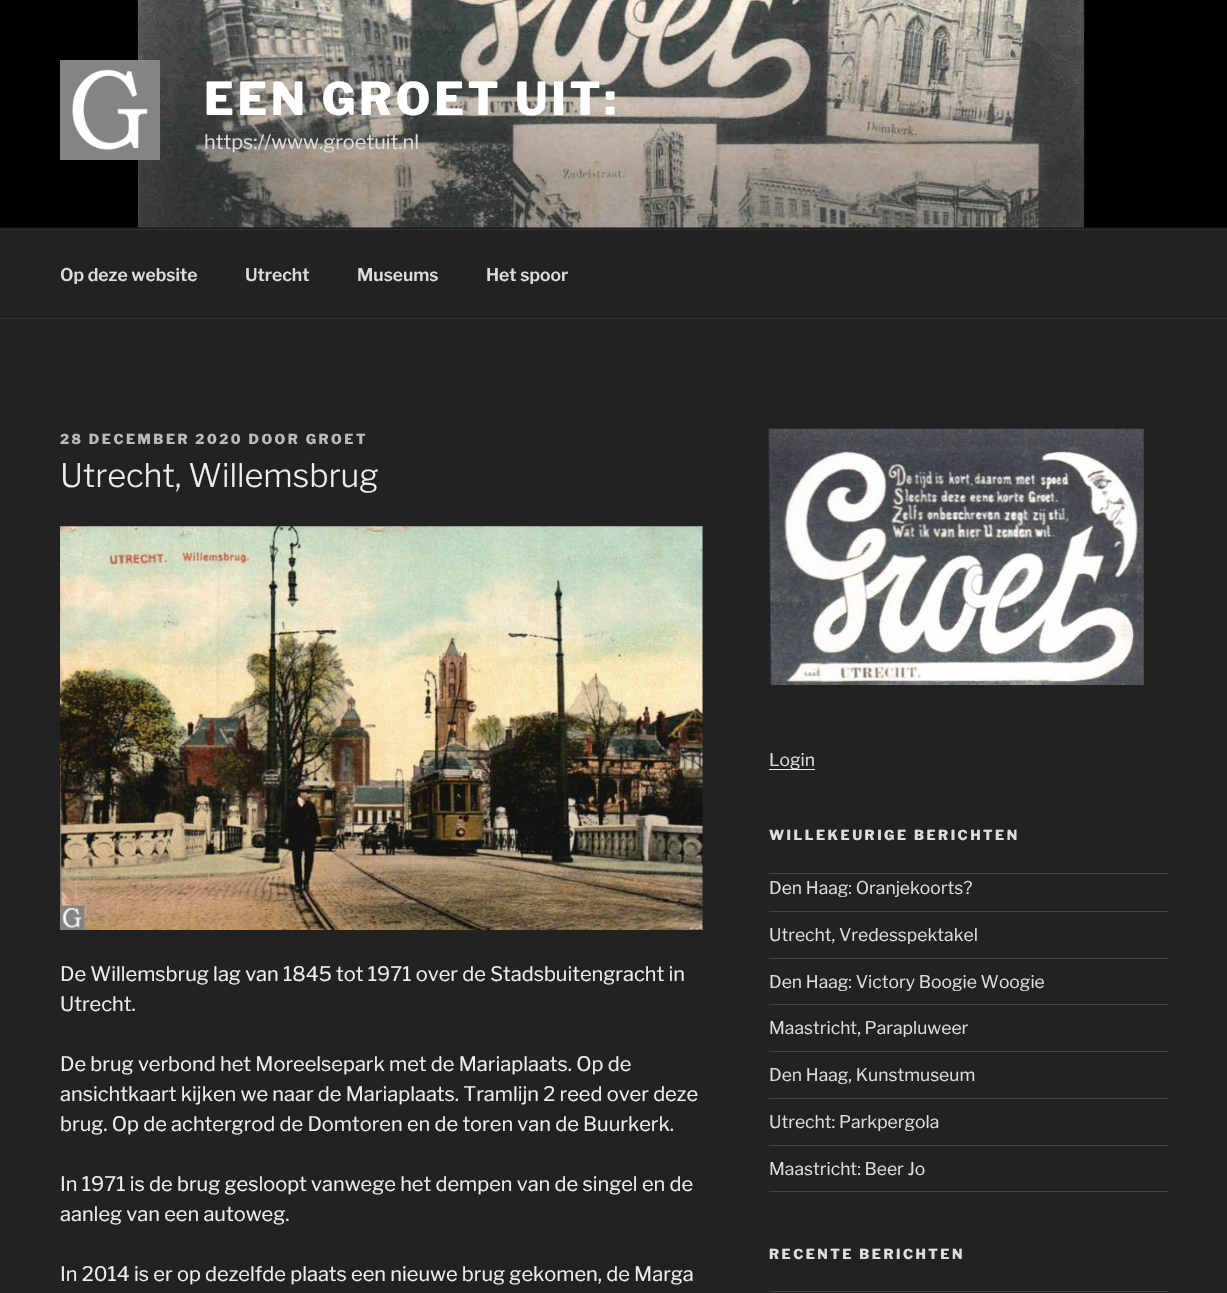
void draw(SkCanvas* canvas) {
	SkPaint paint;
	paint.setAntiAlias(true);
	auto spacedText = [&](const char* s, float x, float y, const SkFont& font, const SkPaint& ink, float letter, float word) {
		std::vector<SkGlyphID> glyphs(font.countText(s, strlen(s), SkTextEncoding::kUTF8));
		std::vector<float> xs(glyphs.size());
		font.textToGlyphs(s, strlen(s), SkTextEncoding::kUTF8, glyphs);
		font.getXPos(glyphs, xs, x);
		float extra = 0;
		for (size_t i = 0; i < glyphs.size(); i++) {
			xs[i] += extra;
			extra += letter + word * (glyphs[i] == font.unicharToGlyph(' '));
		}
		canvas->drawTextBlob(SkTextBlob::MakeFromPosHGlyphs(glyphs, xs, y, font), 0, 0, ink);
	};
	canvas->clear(0xff222222);
	paint.setColor(0xff262626);
	canvas->drawRect(SkRect::MakeXYWH(0, 227, 1227, 2), paint);
	canvas->drawImageRect(SkImages::DeferredFromEncodedData(SkData::MakeFromFileName("img1.png")), SkRect::MakeXYWH(0, 0, 1227, 228), SkSamplingOptions());
	{
		const SkColor colors[] = {0x00000000, 0x4d000000, 0x4d000000};
		const float stops[] = {0, 0.75, 1};
		const SkPoint ends[] = {{614, 0}, {614, 229}};
		paint.setShader(SkGradientShader::MakeLinear(ends, colors, stops, 3, SkTileMode::kClamp));
		paint.setAlpha(255);
	}
	canvas->drawRect(SkRect::MakeXYWH(0, 12, 1227, 217), paint);
	canvas->drawImageRect(SkImages::DeferredFromEncodedData(SkData::MakeFromFileName("img2.png")), SkRect::MakeXYWH(60, 60, 100, 100), SkSamplingOptions());
	SkFont f1(fontMgr->matchFamilyStyle("Libre Franklin", SkFontStyle(800, SkFontStyle::kNormal_Width, SkFontStyle::kUpright_Slant)), 45);
	f1.setSubpixel(true);
	paint.setShader(nullptr);
	paint.setColor(0xffffffff);
	spacedText("EEN GROET UIT:", 204, 115, f1, paint, 3.6, 0);
	SkFont f2(fontMgr->matchFamilyStyle("Libre Franklin", SkFontStyle::Normal()), 20);
	f2.setSubpixel(true);
	paint.setColor(0xffdddddd);
	canvas->drawString("https://www.groetuit.nl", 204, 149, f2, paint);
	paint.setColor(0xff333333);
	canvas->drawRect(SkRect::MakeXYWH(0, 229, 1227, 1), paint);
	canvas->drawRect(SkRect::MakeXYWH(0, 318, 1227, 1), paint);
	SkFont f3(fontMgr->matchFamilyStyle("Libre Franklin", SkFontStyle(600, SkFontStyle::kNormal_Width, SkFontStyle::kUpright_Slant)), 17.5);
	f3.setSubpixel(true);
	paint.setColor(0xffdddddd);
	canvas->drawString("Op deze website", 60, 281, f3, paint);
	canvas->drawString("Utrecht", 245, 281, f3, paint);
	canvas->drawString("Museums", 357, 281, f3, paint);
	canvas->drawString("Het spoor", 486, 281, f3, paint);
	SkFont f4(fontMgr->matchFamilyStyle("Libre Franklin", SkFontStyle(800, SkFontStyle::kNormal_Width, SkFontStyle::kUpright_Slant)), 13.75);
	f4.setSubpixel(true);
	paint.setColor(0xffbbbbbb);
	spacedText("28 DECEMBER 2020 DOOR GROET", 60, 444, f4, paint, 2.5, 0);
	SkFont f5(fontMgr->matchFamilyStyle("Libre Franklin", SkFontStyle(300, SkFontStyle::kNormal_Width, SkFontStyle::kUpright_Slant)), 32.5);
	f5.setSubpixel(true);
	paint.setColor(0xffeeeeee);
	canvas->drawString("Utrecht, Willemsbrug", 60, 487, f5, paint);
	paint.setColor(0xfff0f0f0);
	canvas->drawRect(SkRect::MakeXYWH(702, 929, 1, 1), paint);
	canvas->drawImageRect(SkImages::DeferredFromEncodedData(SkData::MakeFromFileName("img3.png")), SkRect::MakeXYWH(60, 526, 643, 404), SkSamplingOptions());
	paint.setColor(0xffeeeeee);
	canvas->drawString("De Willemsbrug lag van 1845 tot 1971 over de Stadsbuitengracht in", 60, 981, f2, paint);
	canvas->drawString("Utrecht.", 60, 1011, f2, paint);
	canvas->drawString("De brug verbond het Moreelsepark met de Mariaplaats. Op de", 60, 1071, f2, paint);
	canvas->drawString("ansichtkaart kijken we naar de Mariaplaats. Tramlijn 2 reed over deze", 60, 1101, f2, paint);
	canvas->drawString("brug. Op de achtergrod de Domtoren en de toren van de Buurkerk.", 60, 1131, f2, paint);
	canvas->drawString("In 1971 is de brug gesloopt vanwege het dempen van de singel en de", 60, 1191, f2, paint);
	canvas->drawString("aanleg van een autoweg.", 60, 1221, f2, paint);
	canvas->drawString("In 2014 is er op dezelfde plaats een nieuwe brug gekomen, de Marga", 60, 1281, f2, paint);
	canvas->drawImageRect(SkImages::DeferredFromEncodedData(SkData::MakeFromFileName("img4.png")), SkRect::MakeXYWH(768, 428, 376, 257), SkSamplingOptions());
	paint.setColor(0xfff0f0f0);
	canvas->drawRect(SkRect::MakeXYWH(769, 769, 46, 1), paint);
	SkFont f6(fontMgr->matchFamilyStyle("Libre Franklin", SkFontStyle::Normal()), 17.5);
	f6.setSubpixel(true);
	paint.setColor(0xffdddddd);
	canvas->drawString("Login", 769, 766, f6, paint);
	spacedText("WILLEKEURIGE BERICHTEN", 769, 840, f4, paint, 2.5, 0);
	paint.setColor(0xff444444);
	canvas->drawRect(SkRect::MakeXYWH(769, 873, 399, 1), paint);
	canvas->drawRect(SkRect::MakeXYWH(769, 911, 399, 1), paint);
	paint.setColor(0xffdddddd);
	canvas->drawString("Den Haag: Oranjekoorts?", 769, 894, f6, paint);
	paint.setColor(0xff444444);
	canvas->drawRect(SkRect::MakeXYWH(769, 958, 399, 1), paint);
	paint.setColor(0xffdddddd);
	canvas->drawString("Utrecht, Vredesspektakel", 769, 941, f6, paint);
	paint.setColor(0xff444444);
	canvas->drawRect(SkRect::MakeXYWH(769, 1004, 399, 1), paint);
	paint.setColor(0xffdddddd);
	canvas->drawString("Den Haag: Victory Boogie Woogie", 769, 988, f6, paint);
	paint.setColor(0xff444444);
	canvas->drawRect(SkRect::MakeXYWH(769, 1051, 399, 1), paint);
	paint.setColor(0xffdddddd);
	canvas->drawString("Maastricht, Parapluweer", 769, 1034, f6, paint);
	paint.setColor(0xff444444);
	canvas->drawRect(SkRect::MakeXYWH(769, 1098, 399, 1), paint);
	paint.setColor(0xffdddddd);
	canvas->drawString("Den Haag, Kunstmuseum", 769, 1081, f6, paint);
	paint.setColor(0xff444444);
	canvas->drawRect(SkRect::MakeXYWH(769, 1145, 399, 1), paint);
	paint.setColor(0xffdddddd);
	canvas->drawString("Utrecht: Parkpergola", 769, 1128, f6, paint);
	paint.setColor(0xff444444);
	canvas->drawRect(SkRect::MakeXYWH(769, 1191, 399, 1), paint);
	paint.setColor(0xffdddddd);
	canvas->drawString("Maastricht: Beer Jo", 769, 1175, f6, paint);
	spacedText("RECENTE BERICHTEN", 769, 1259, f4, paint, 2.5, 0);
	paint.setColor(0xff444444);
	canvas->drawRect(SkRect::MakeXYWH(769, 1291, 399, 1), paint);
}
